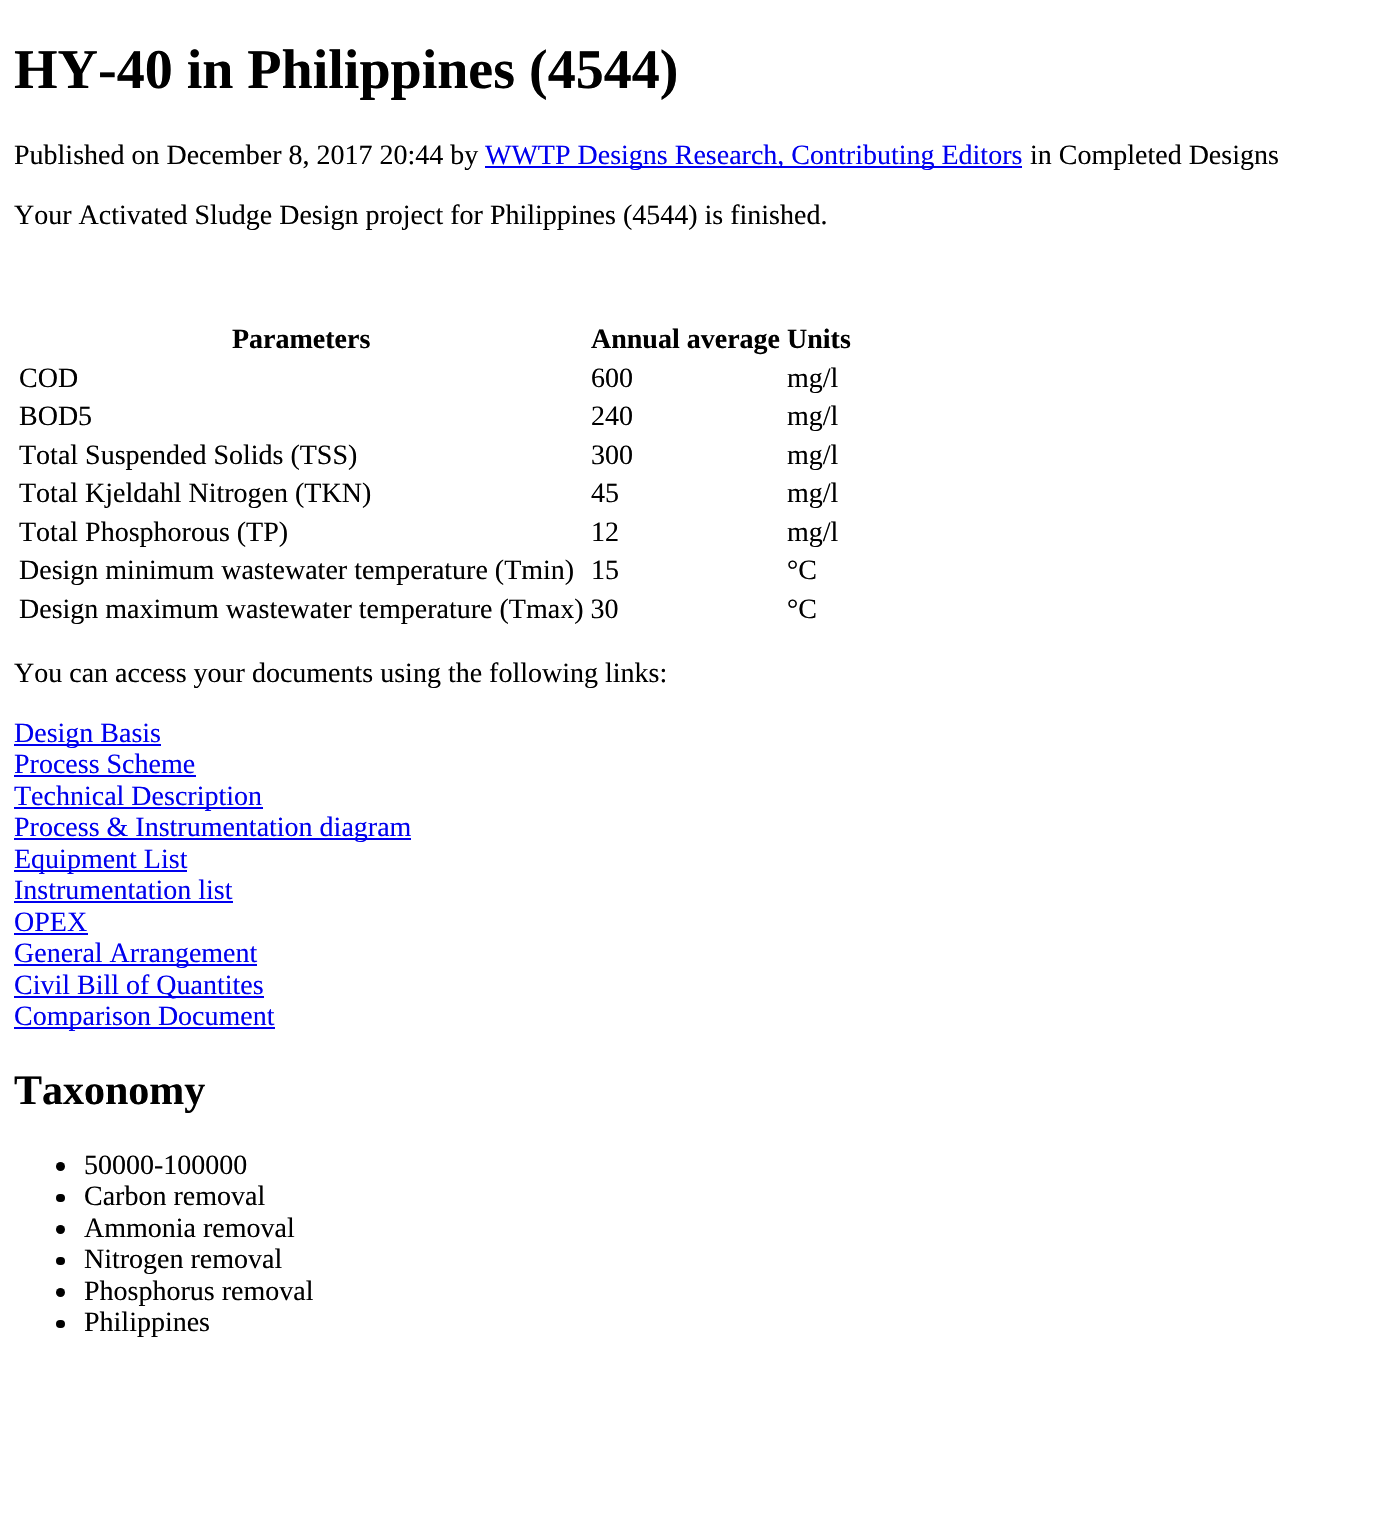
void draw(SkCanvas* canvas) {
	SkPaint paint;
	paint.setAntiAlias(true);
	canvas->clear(0xffffffff);
	SkFont f1(fontMgr->matchFamilyStyle("Liberation Serif", SkFontStyle::Bold()), 56);
	f1.setSubpixel(true);
	paint.setColor(0xff000000);
	canvas->drawString("HY-40 in Philippines (4544)", 14, 88, f1, paint);
	SkFont f2(fontMgr->matchFamilyStyle("Liberation Serif", SkFontStyle::Normal()), 28);
	f2.setSubpixel(true);
	canvas->drawString("Published on December 8, 2017 20:44 by", 14, 164, f2, paint);
	paint.setColor(0xff0000ee);
	canvas->drawRect(SkRect::MakeXYWH(485, 166, 537, 2), paint);
	canvas->drawString("WWTP Designs Research, Contributing Editors", 485, 164, f2, paint);
	paint.setColor(0xff000000);
	canvas->drawString("in Completed Designs", 1030, 164, f2, paint);
	canvas->drawString("Your Activated Sludge Design project for Philippines (4544) is finished.", 14, 224, f2, paint);
	SkFont f3(fontMgr->matchFamilyStyle("Liberation Serif", SkFontStyle::Bold()), 28);
	f3.setSubpixel(true);
	canvas->drawString("Parameters", 232, 348, f3, paint);
	canvas->drawString("Annual average Units", 591, 348, f3, paint);
	canvas->drawString("COD", 19, 387, f2, paint);
	canvas->drawString("600", 591, 387, f2, paint);
	canvas->drawString("mg/l", 787, 387, f2, paint);
	canvas->drawString("BOD5", 19, 425, f2, paint);
	canvas->drawString("240", 591, 425, f2, paint);
	canvas->drawString("mg/l", 787, 425, f2, paint);
	canvas->drawString("Total Suspended Solids (TSS)", 19, 464, f2, paint);
	canvas->drawString("300", 591, 464, f2, paint);
	canvas->drawString("mg/l", 787, 464, f2, paint);
	canvas->drawString("Total Kjeldahl Nitrogen (TKN)", 19, 502, f2, paint);
	canvas->drawString("45", 591, 502, f2, paint);
	canvas->drawString("mg/l", 787, 502, f2, paint);
	canvas->drawString("Total Phosphorous (TP)", 19, 541, f2, paint);
	canvas->drawString("12", 591, 541, f2, paint);
	canvas->drawString("mg/l", 787, 541, f2, paint);
	canvas->drawString("Design minimum wastewater temperature (Tmin)", 19, 579, f2, paint);
	canvas->drawString("15", 591, 579, f2, paint);
	canvas->drawString("°C", 787, 579, f2, paint);
	canvas->drawString("Design maximum wastewater temperature (Tmax) 30", 19, 618, f2, paint);
	canvas->drawString("°C", 787, 618, f2, paint);
	canvas->drawString("You can access your documents using the following links:", 14, 682, f2, paint);
	paint.setColor(0xff0000ee);
	canvas->drawRect(SkRect::MakeXYWH(14, 744, 147, 2), paint);
	canvas->drawString("Design Basis", 14, 742, f2, paint);
	canvas->drawString("Process Scheme", 14, 773, f2, paint);
	canvas->drawRect(SkRect::MakeXYWH(14, 775, 182, 2), paint);
	canvas->drawRect(SkRect::MakeXYWH(14, 807, 249, 2), paint);
	canvas->drawString("Technical Description", 14, 805, f2, paint);
	canvas->drawRect(SkRect::MakeXYWH(14, 838, 397, 2), paint);
	canvas->drawString("Process & Instrumentation diagram", 14, 836, f2, paint);
	canvas->drawRect(SkRect::MakeXYWH(14, 870, 173, 2), paint);
	canvas->drawString("Equipment List", 14, 868, f2, paint);
	canvas->drawString("Instrumentation list", 14, 899, f2, paint);
	canvas->drawRect(SkRect::MakeXYWH(14, 901, 219, 2), paint);
	canvas->drawString("OPEX", 14, 931, f2, paint);
	canvas->drawRect(SkRect::MakeXYWH(14, 933, 74, 2), paint);
	canvas->drawRect(SkRect::MakeXYWH(14, 964, 243, 2), paint);
	canvas->drawString("General Arrangement", 14, 962, f2, paint);
	canvas->drawRect(SkRect::MakeXYWH(14, 996, 250, 2), paint);
	canvas->drawString("Civil Bill of Quantites", 14, 994, f2, paint);
	canvas->drawRect(SkRect::MakeXYWH(14, 1027, 261, 2), paint);
	canvas->drawString("Comparison Document", 14, 1025, f2, paint);
	SkFont f4(fontMgr->matchFamilyStyle("Liberation Serif", SkFontStyle::Bold()), 42);
	f4.setSubpixel(true);
	paint.setColor(0xff000000);
	canvas->drawString("Taxonomy", 14, 1104, f4, paint);
	canvas->drawCircle(60.5, 1166.5, 4.5, paint);
	canvas->drawString("50000-100000", 84, 1174, f2, paint);
	canvas->drawRoundRect(SkRect::MakeXYWH(56, 1194, 9, 8), 4, 4, paint);
	canvas->drawString("Carbon removal", 84, 1205, f2, paint);
	canvas->drawCircle(60.5, 1229.5, 4.5, paint);
	canvas->drawString("Ammonia removal", 84, 1237, f2, paint);
	canvas->drawRoundRect(SkRect::MakeXYWH(56, 1257, 9, 8), 4, 4, paint);
	canvas->drawString("Nitrogen removal", 84, 1268, f2, paint);
	canvas->drawCircle(60.5, 1292.5, 4.5, paint);
	canvas->drawString("Phosphorus removal", 84, 1300, f2, paint);
	canvas->drawRoundRect(SkRect::MakeXYWH(56, 1320, 9, 8), 4, 4, paint);
	canvas->drawString("Philippines", 84, 1331, f2, paint);
}
